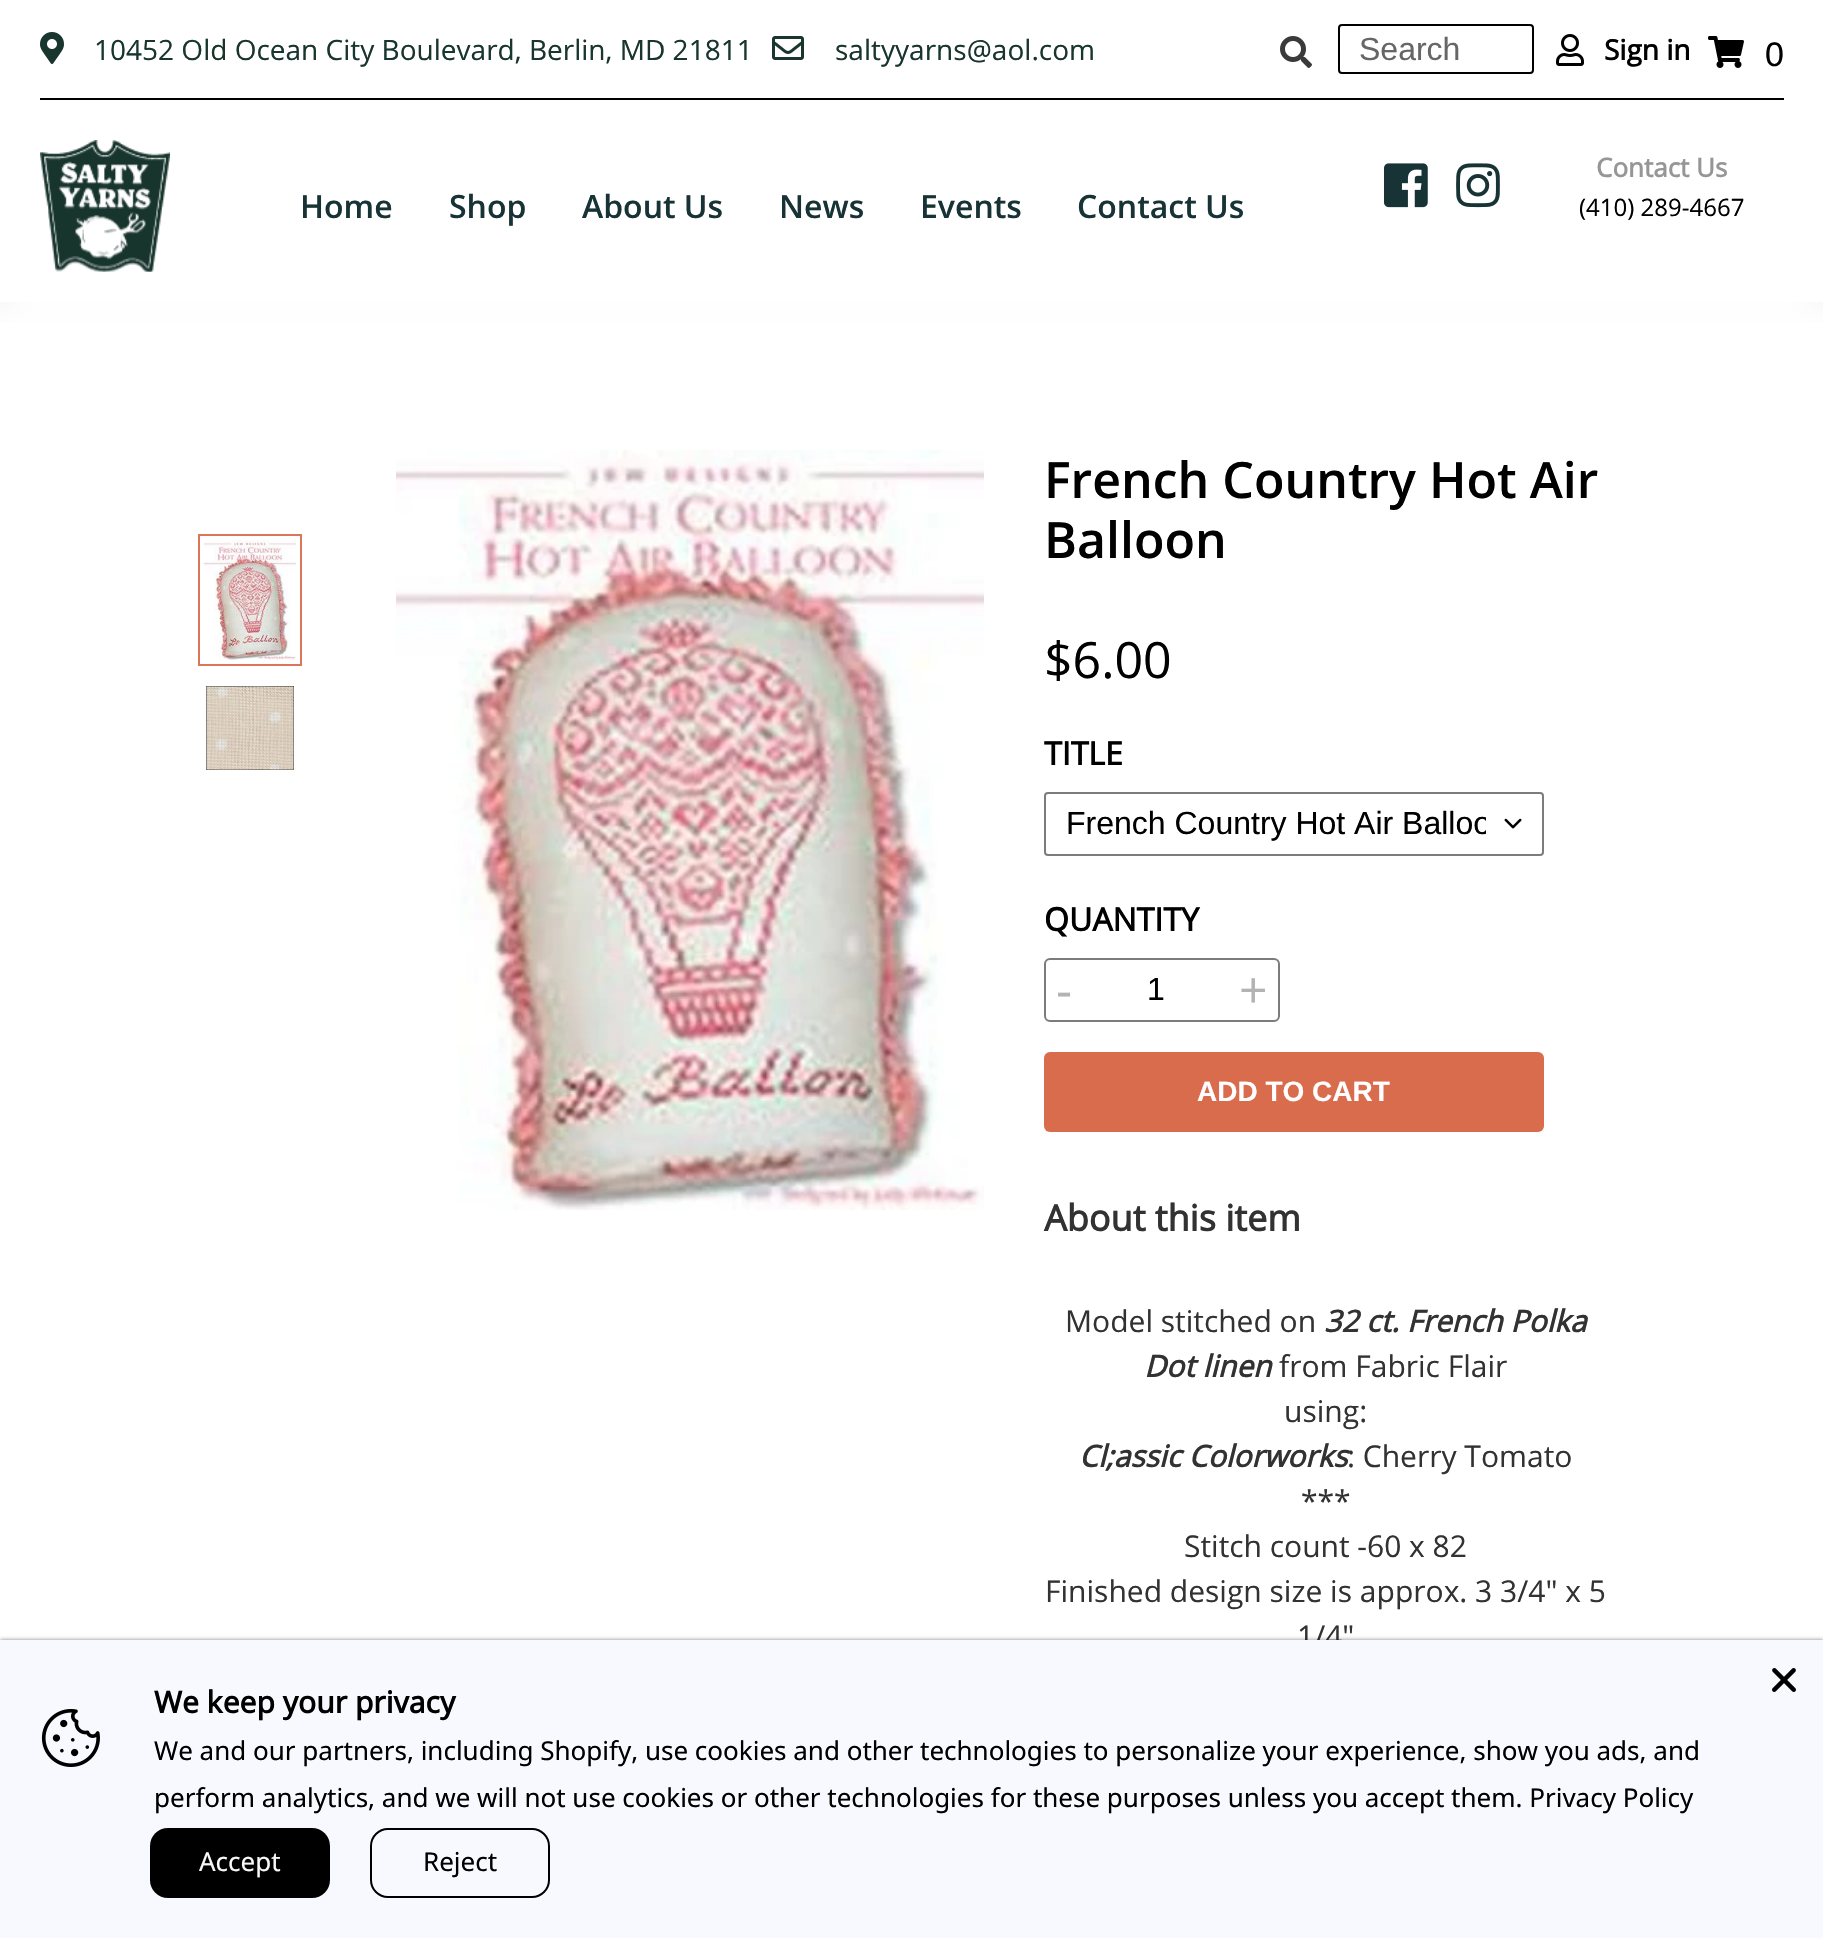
void draw(SkCanvas* canvas) {
	SkPaint paint;
	paint.setAntiAlias(true);
	auto svgPath = [&](const char* data, bool evenOdd = false) {
		SkPath result = *SkParsePath::FromSVGString(data);
		if (evenOdd) result.setFillType(SkPathFillType::kEvenOdd);
		return result;
	};
	canvas->clear(0xffffffff);
	canvas->save();
	canvas->clipRect(SkRect::MakeXYWH(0, 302, 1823, 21));
	paint.setColor(0x33000000);
	paint.setMaskFilter(SkMaskFilter::MakeBlur(kNormal_SkBlurStyle, 10));
	canvas->drawRect(SkRect::MakeXYWH(-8, -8, 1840, 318), paint);
	paint.setMaskFilter(nullptr);
	canvas->restore();
	paint.setColor(0xff000000);
	canvas->drawRect(SkRect::MakeXYWH(40, 98, 1744, 2), paint);
	canvas->drawImageRect(SkImages::DeferredFromEncodedData(SkData::MakeFromFileName("img1.png")), SkRect::MakeXYWH(40, 32, 24, 32), SkSamplingOptions());
	SkFont f1(fontMgr->matchFamilyStyle("Open Sans", SkFontStyle::Normal()), 28);
	f1.setSubpixel(true);
	paint.setColor(0xff18352e);
	canvas->drawString("10452 Old Ocean City Boulevard, Berlin, MD 21811", 94, 60, f1, paint);
	canvas->drawImageRect(SkImages::DeferredFromEncodedData(SkData::MakeFromFileName("img2.png")), SkRect::MakeXYWH(772, 36, 32, 24), SkSamplingOptions());
	canvas->drawString("saltyyarns@aol.com", 835, 60, f1, paint);
	canvas->drawImageRect(SkImages::DeferredFromEncodedData(SkData::MakeFromFileName("img3.png")), SkRect::MakeXYWH(1280, 36, 32, 32), SkSamplingOptions());
	paint.setStroke(true);
	paint.setStrokeWidth(2);
	paint.setColor(0xff000000);
	canvas->drawRoundRect(SkRect::MakeXYWH(1339, 25, 194, 48), 3, 3, paint);
	SkFont f2(fontMgr->matchFamilyStyle("Liberation Sans", SkFontStyle::Normal()), 32);
	f2.setSubpixel(true);
	paint.setStroke(false);
	paint.setColor(0xff666666);
	canvas->drawString("Search", 1359, 60, f2, paint);
	canvas->drawImageRect(SkImages::DeferredFromEncodedData(SkData::MakeFromFileName("img4.png")), SkRect::MakeXYWH(1556, 34, 28, 32), SkSamplingOptions());
	SkFont f3(fontMgr->matchFamilyStyle("Open Sans", SkFontStyle::Bold()), 28);
	f3.setSubpixel(true);
	paint.setColor(0xff000000);
	canvas->drawString("Sign in", 1604, 60, f3, paint);
	canvas->drawImageRect(SkImages::DeferredFromEncodedData(SkData::MakeFromFileName("img5.png")), SkRect::MakeXYWH(1708, 36, 36, 32), SkSamplingOptions());
	SkFont f4(fontMgr->matchFamilyStyle("Liberation Sans", SkFontStyle::Normal()), 34);
	f4.setSubpixel(true);
	canvas->drawString("0", 1765, 66, f4, paint);
	canvas->drawImageRect(SkImages::DeferredFromEncodedData(SkData::MakeFromFileName("img11.png")), SkRect::MakeXYWH(396, 450, 588, 760), SkSamplingOptions());
	canvas->save();
	canvas->clipPath(svgPath("M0 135H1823V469H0ZM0 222H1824V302H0Z", true), true);
	paint.setColor(0xffffffff);
	paint.setMaskFilter(SkMaskFilter::MakeBlur(kNormal_SkBlurStyle, 32));
	canvas->drawRect(SkRect::MakeXYWH(-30, 232, 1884, 140), paint);
	paint.setMaskFilter(nullptr);
	canvas->restore();
	canvas->drawImageRect(SkImages::DeferredFromEncodedData(SkData::MakeFromFileName("img6.png")), SkRect::MakeXYWH(40, 140, 130, 132), SkSamplingOptions());
	SkFont f5(fontMgr->matchFamilyStyle("Open Sans", SkFontStyle(600, SkFontStyle::kNormal_Width, SkFontStyle::kUpright_Slant)), 32);
	f5.setSubpixel(true);
	paint.setColor(0xff183336);
	canvas->drawString("Home", 300, 218, f5, paint);
	canvas->drawString("Shop", 449, 218, f5, paint);
	canvas->drawString("About Us", 582, 218, f5, paint);
	canvas->drawString("News", 779, 218, f5, paint);
	canvas->drawString("Events", 920, 218, f5, paint);
	canvas->drawString("Contact Us", 1077, 218, f5, paint);
	canvas->drawImageRect(SkImages::DeferredFromEncodedData(SkData::MakeFromFileName("img7.png")), SkRect::MakeXYWH(1384, 163, 44, 45), SkSamplingOptions());
	canvas->drawImageRect(SkImages::DeferredFromEncodedData(SkData::MakeFromFileName("img8.png")), SkRect::MakeXYWH(1456, 163, 44, 45), SkSamplingOptions());
	SkFont f6(fontMgr->matchFamilyStyle("Open Sans", SkFontStyle::Bold()), 26);
	f6.setSubpixel(true);
	paint.setColor(0xff979696);
	canvas->drawString("Contact Us", 1596, 177, f6, paint);
	SkFont f7(fontMgr->matchFamilyStyle("Open Sans", SkFontStyle::Normal()), 24);
	f7.setSubpixel(true);
	paint.setColor(0xff000000);
	canvas->drawString("(410) 289-4667", 1579, 216, f7, paint);
	paint.setStroke(true);
	paint.setColor(0xffdc765a);
	canvas->drawRect(SkRect::MakeXYWH(199, 535, 102, 130), paint);
	canvas->drawImageRect(SkImages::DeferredFromEncodedData(SkData::MakeFromFileName("img9.png")), SkRect::MakeXYWH(204, 540, 92, 120), SkSamplingOptions());
	canvas->drawImageRect(SkImages::DeferredFromEncodedData(SkData::MakeFromFileName("img10.png")), SkRect::MakeXYWH(206, 686, 88, 84), SkSamplingOptions());
	SkFont f8(fontMgr->matchFamilyStyle("Open Sans", SkFontStyle(600, SkFontStyle::kNormal_Width, SkFontStyle::kUpright_Slant)), 50);
	f8.setSubpixel(true);
	paint.setStroke(false);
	paint.setColor(0xff000000);
	canvas->drawString("French Country Hot Air", 1044, 498, f8, paint);
	canvas->drawString("Balloon", 1044, 558, f8, paint);
	SkFont f9(fontMgr->matchFamilyStyle("Open Sans", SkFontStyle::Normal()), 50);
	f9.setSubpixel(true);
	canvas->drawString("$6.00", 1044, 678, f9, paint);
	SkFont f10(fontMgr->matchFamilyStyle("Open Sans", SkFontStyle::Bold()), 32);
	f10.setSubpixel(true);
	canvas->drawString("TITLE", 1044, 765, f10, paint);
	canvas->drawImageRect(SkImages::DeferredFromEncodedData(SkData::MakeFromFileName("img12.png")), SkRect::MakeXYWH(1504, 818, 18, 11), SkSamplingOptions());
	paint.setStroke(true);
	paint.setColor(0xff7c7c7c);
	canvas->drawRoundRect(SkRect::MakeXYWH(1045, 793, 498, 62), 3, 3, paint);
	canvas->save();
	canvas->clipRect(SkRect::MakeXYWH(1066, 804, 420, 38));
	paint.setStroke(false);
	paint.setColor(0xff000000);
	canvas->drawString("French Country Hot Air Balloo", 1066, 834, f2, paint);
	canvas->restore();
	canvas->drawString("QUANTITY", 1044, 931, f10, paint);
	paint.setStroke(true);
	paint.setColor(0xff7c7c7c);
	canvas->drawRoundRect(SkRect::MakeXYWH(1045, 959, 234, 62), 5, 5, paint);
	paint.setStroke(false);
	paint.setColor(0xffb3b3b3);
	canvas->drawString("-", 1056, 1008, f9, paint);
	paint.setColor(0xff000000);
	canvas->drawString("1", 1147, 1000, f2, paint);
	paint.setColor(0xffb3b3b3);
	canvas->drawString("+", 1239, 1008, f9, paint);
	paint.setColor(0xffda6c4e);
	canvas->drawRoundRect(SkRect::MakeXYWH(1044, 1052, 500, 80), 6, 6, paint);
	SkFont f11(fontMgr->matchFamilyStyle("Liberation Sans", SkFontStyle::Bold()), 28);
	f11.setSubpixel(true);
	paint.setColor(0xffffffff);
	canvas->drawString("ADD TO CART", 1197, 1101, f11, paint);
	SkFont f12(fontMgr->matchFamilyStyle("Open Sans", SkFontStyle::Bold()), 36);
	f12.setSubpixel(true);
	paint.setColor(0xff333232);
	canvas->drawString("About this item", 1044, 1231, f12, paint);
	SkFont f13(fontMgr->matchFamilyStyle("Open Sans", SkFontStyle::Normal()), 30);
	f13.setSubpixel(true);
	canvas->drawString("Model stitched on", 1065, 1332, f13, paint);
	SkFont f14(fontMgr->matchFamilyStyle("Open Sans", SkFontStyle::BoldItalic()), 30);
	f14.setSubpixel(true);
	canvas->drawString("32 ct. French Polka", 1324, 1332, f14, paint);
	canvas->drawString("Dot linen", 1144, 1377, f14, paint);
	canvas->drawString("from Fabric Flair", 1279, 1377, f13, paint);
	canvas->drawString("using:", 1284, 1422, f13, paint);
	canvas->drawString("Cl;assic Colorworks", 1079, 1467, f14, paint);
	canvas->drawString(": Cherry Tomato", 1347, 1467, f13, paint);
	canvas->drawString("***", 1301, 1512, f13, paint);
	canvas->drawString("Stitch count -60 x 82", 1184, 1557, f13, paint);
	canvas->drawString("Finished design size is approx. 3 3/4\" x 5", 1045, 1602, f13, paint);
	canvas->drawString("1/4\"", 1297, 1647, f13, paint);
	paint.setColor(0x80000000);
	paint.setMaskFilter(SkMaskFilter::MakeBlur(kNormal_SkBlurStyle, 2));
	canvas->drawRect(SkRect::MakeXYWH(0, 1640, 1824, 298), paint);
	paint.setMaskFilter(nullptr);
	paint.setColor(0xfff8f8ff);
	canvas->drawRect(SkRect::MakeXYWH(0, 1640, 1823, 298), paint);
	canvas->drawImageRect(SkImages::DeferredFromEncodedData(SkData::MakeFromFileName("img13.png")), SkRect::MakeXYWH(1772, 1668, 24, 24), SkSamplingOptions());
	canvas->drawImageRect(SkImages::DeferredFromEncodedData(SkData::MakeFromFileName("img14.png")), SkRect::MakeXYWH(41, 1709, 59, 58), SkSamplingOptions());
	SkFont f15(fontMgr->matchFamilyStyle("Noto Sans", SkFontStyle::Bold()), 30);
	f15.setSubpixel(true);
	paint.setColor(0xff000000);
	canvas->drawString("We keep your privacy", 154, 1713, f15, paint);
	SkFont f16(fontMgr->matchFamilyStyle("Noto Sans", SkFontStyle::Normal()), 26);
	f16.setSubpixel(true);
	canvas->drawString("We and our partners, including Shopify, use cookies and other technologies to personalize your experience, show you ads, and", 154, 1760, f16, paint);
	canvas->drawString("perform analytics, and we will not use cookies or other technologies for these purposes unless you accept them. Privacy Policy", 154, 1807, f16, paint);
	canvas->drawRoundRect(SkRect::MakeXYWH(150, 1828, 180, 70), 18, 18, paint);
	paint.setColor(0xfff8f8f8);
	canvas->drawString("Accept", 199, 1871, f16, paint);
	paint.setStroke(true);
	paint.setColor(0xff000000);
	canvas->drawRoundRect(SkRect::MakeXYWH(371, 1829, 178, 68), 17, 17, paint);
	paint.setStroke(false);
	canvas->drawString("Reject", 423, 1871, f16, paint);
}
